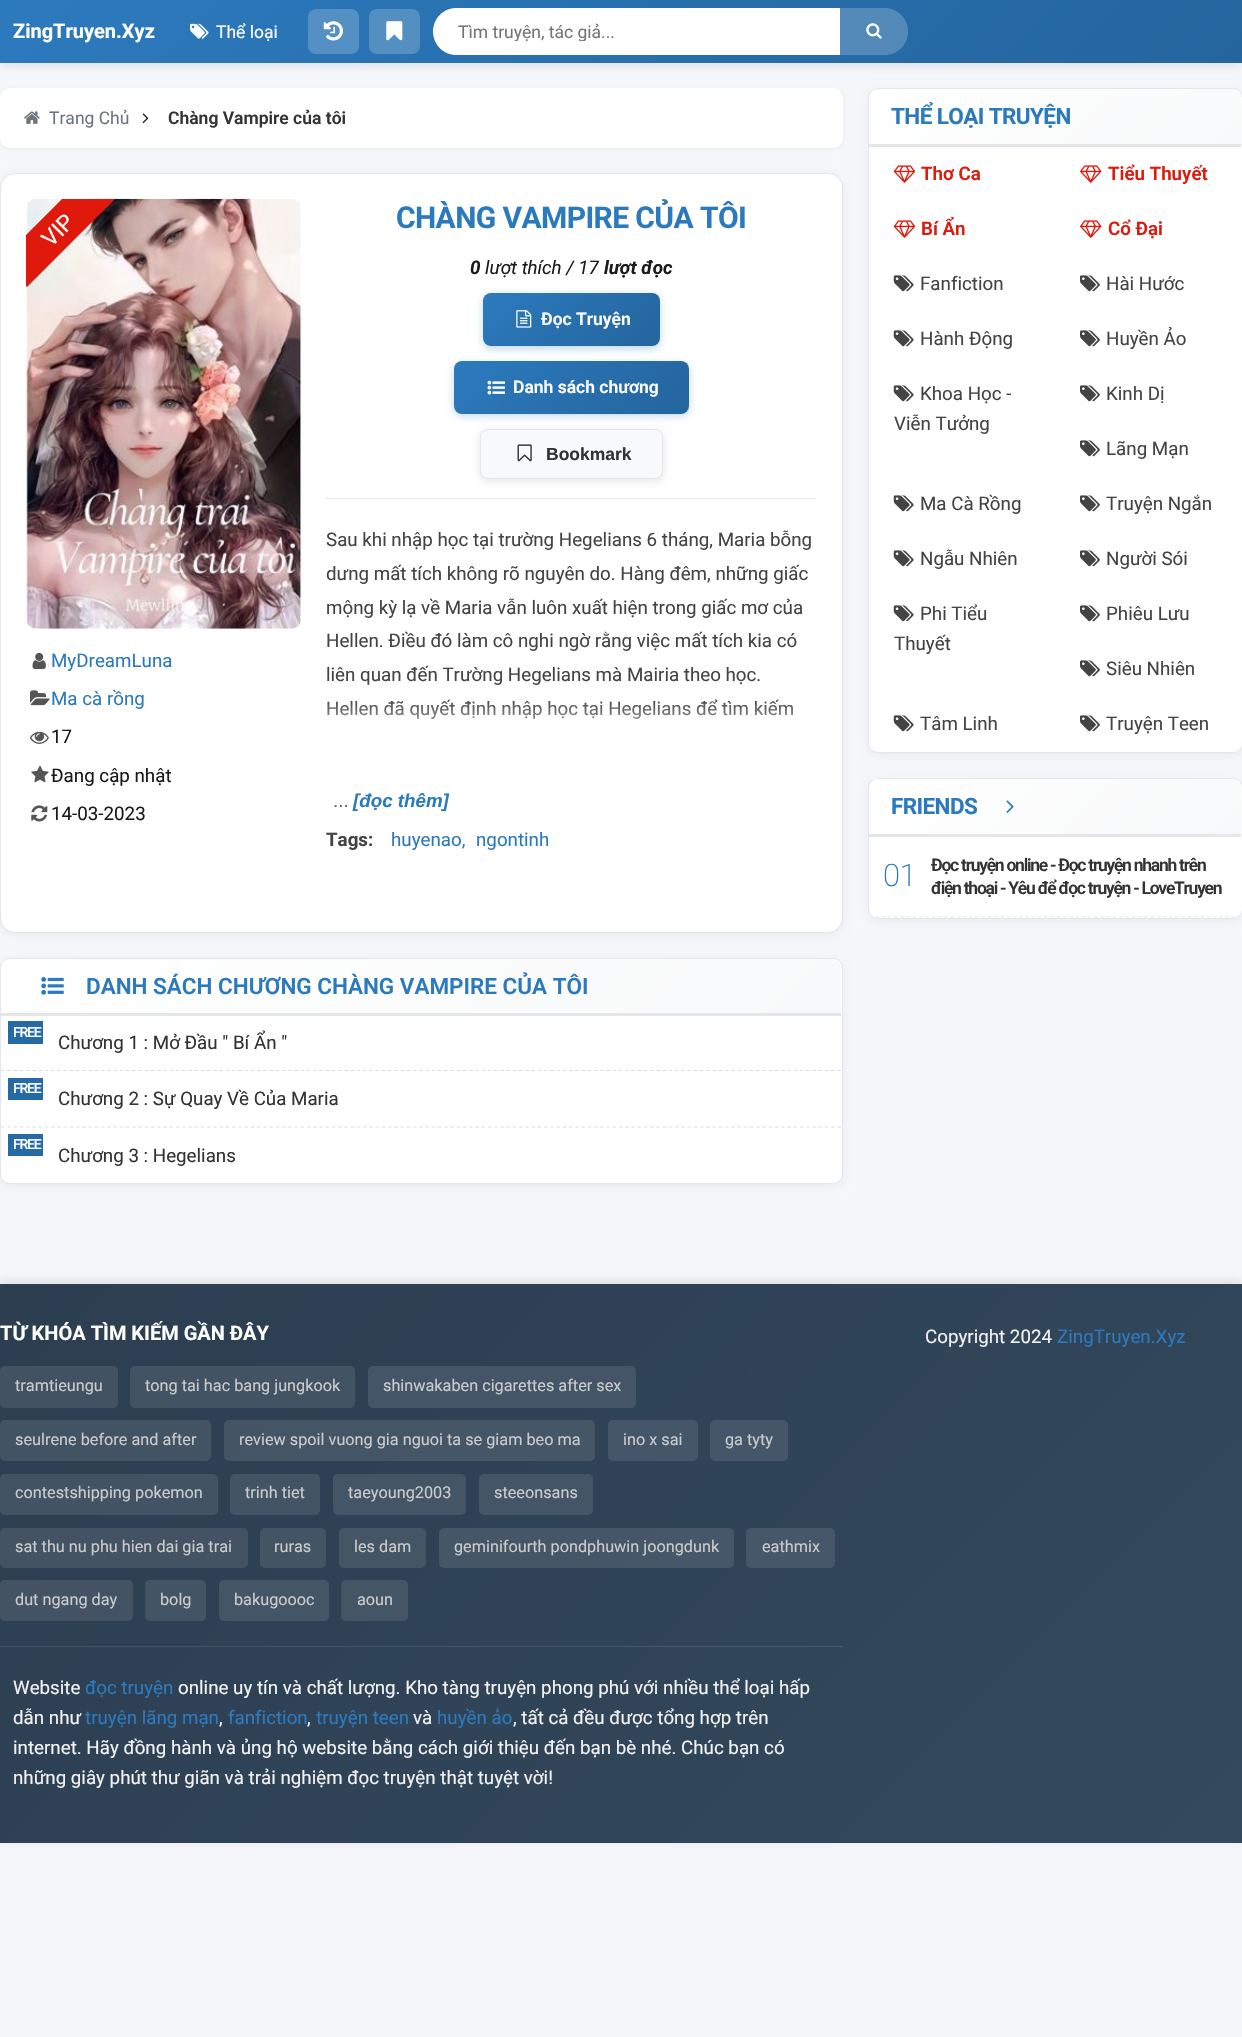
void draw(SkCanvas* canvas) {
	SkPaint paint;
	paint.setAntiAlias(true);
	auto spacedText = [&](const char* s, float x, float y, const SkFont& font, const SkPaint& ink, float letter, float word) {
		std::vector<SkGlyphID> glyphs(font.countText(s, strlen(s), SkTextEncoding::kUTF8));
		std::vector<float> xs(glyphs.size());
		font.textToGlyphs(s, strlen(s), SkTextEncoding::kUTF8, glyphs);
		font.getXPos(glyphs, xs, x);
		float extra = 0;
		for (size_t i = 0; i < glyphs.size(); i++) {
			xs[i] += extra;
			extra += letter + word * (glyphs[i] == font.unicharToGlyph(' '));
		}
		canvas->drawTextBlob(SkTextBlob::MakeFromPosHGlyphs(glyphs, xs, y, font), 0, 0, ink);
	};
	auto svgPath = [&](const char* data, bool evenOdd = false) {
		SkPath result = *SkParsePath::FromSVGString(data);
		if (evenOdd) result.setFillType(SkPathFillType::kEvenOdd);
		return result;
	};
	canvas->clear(0xfff5f7fa);
	paint.setColor(0x1a000000);
	paint.setMaskFilter(SkMaskFilter::MakeBlur(kNormal_SkBlurStyle, 5));
	canvas->drawRect(SkRect::MakeXYWH(0, 3, 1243, 62), paint);
	paint.setMaskFilter(nullptr);
	{
		const SkColor colors[] = {0xff2c7abe, 0xff24659d};
		const float stops[] = {0, 1};
		const SkPoint ends[] = {{295, -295}, {948, 357}};
		paint.setShader(SkGradientShader::MakeLinear(ends, colors, stops, 2, SkTileMode::kClamp));
		paint.setAlpha(255);
	}
	canvas->drawRect(SkRect::MakeXYWH(0, 0, 1242, 63), paint);
	SkFont f1(fontMgr->matchFamilyStyle("Roboto", SkFontStyle::Bold()), 20);
	f1.setSubpixel(true);
	paint.setShader(nullptr);
	paint.setColor(0xffffffff);
	canvas->drawString("ZingTruyen.Xyz", 13, 38, f1, paint);
	canvas->drawImageRect(SkImages::DeferredFromEncodedData(SkData::MakeFromFileName("img1.png")), SkRect::MakeXYWH(190, 23, 19, 16), SkSamplingOptions());
	SkFont f2(fontMgr->matchFamilyStyle("Roboto", SkFontStyle::Normal()), 17.5);
	f2.setSubpixel(true);
	canvas->drawString("Thể loại", 216, 38, f2, paint);
	paint.setColor(0xff5590c4);
	canvas->drawRoundRect(SkRect::MakeXYWH(308, 9, 51, 45), 8, 8, paint);
	canvas->drawImageRect(SkImages::DeferredFromEncodedData(SkData::MakeFromFileName("img2.png")), SkRect::MakeXYWH(323, 21, 20, 20), SkSamplingOptions());
	paint.setColor(0xff548fc2);
	canvas->drawRoundRect(SkRect::MakeXYWH(369, 9, 51, 45), 8, 8, paint);
	canvas->drawImageRect(SkImages::DeferredFromEncodedData(SkData::MakeFromFileName("img3.png")), SkRect::MakeXYWH(386, 21, 17, 20), SkSamplingOptions());
	paint.setColor(0xffffffff);
	canvas->drawPath(svgPath("M456.5 8H840V55H456.5C443.5 55 433 44.5 433 31.5C433 18.5 443.5 8 456.5 8Z"), paint);
	canvas->save();
	canvas->clipRect(SkRect::MakeXYWH(458, 21, 357, 20));
	paint.setColor(0xff757575);
	canvas->drawString("Tìm truyện, tác giả...", 458, 38, f2, paint);
	canvas->restore();
	paint.setColor(0x33ffffff);
	canvas->drawPath(svgPath("M840 8H884.5C897.5 8 908 18.5 908 31.5C908 44.5 897.5 55 884.5 55H840Z"), paint);
	canvas->drawImageRect(SkImages::DeferredFromEncodedData(SkData::MakeFromFileName("img4.png")), SkRect::MakeXYWH(866, 23, 16, 16), SkSamplingOptions());
	paint.setColor(0x0d000000);
	paint.setMaskFilter(SkMaskFilter::MakeBlur(kNormal_SkBlurStyle, 2.5));
	canvas->drawRoundRect(SkRect::MakeXYWH(0, 89, 843, 60), 10, 10, paint);
	paint.setMaskFilter(nullptr);
	paint.setColor(0xffffffff);
	canvas->drawRoundRect(SkRect::MakeXYWH(0, 88, 843, 60), 10, 10, paint);
	canvas->drawImageRect(SkImages::DeferredFromEncodedData(SkData::MakeFromFileName("img5.png")), SkRect::MakeXYWH(24, 111, 16, 13), SkSamplingOptions());
	paint.setColor(0xff6c757d);
	canvas->drawString("Trang Chủ", 49, 124, f2, paint);
	canvas->drawImageRect(SkImages::DeferredFromEncodedData(SkData::MakeFromFileName("img6.png")), SkRect::MakeXYWH(142, 113, 7, 11), SkSamplingOptions());
	SkFont f3(fontMgr->matchFamilyStyle("Roboto", SkFontStyle(600, SkFontStyle::kNormal_Width, SkFontStyle::kUpright_Slant)), 17.5);
	f3.setSubpixel(true);
	paint.setColor(0xff333333);
	canvas->drawString("Chàng Vampire của tôi", 168, 124, f3, paint);
	paint.setColor(0x0d000000);
	paint.setMaskFilter(SkMaskFilter::MakeBlur(kNormal_SkBlurStyle, 5));
	canvas->drawRoundRect(SkRect::MakeXYWH(0, 175, 843, 760), 15, 15, paint);
	paint.setMaskFilter(nullptr);
	paint.setColor(0xffffffff);
	canvas->drawRoundRect(SkRect::MakeXYWH(0.5, 173.5, 842, 759), 14.5, 14.5, paint);
	paint.setStroke(true);
	paint.setStrokeWidth(1);
	paint.setColor(0xffe5e6e9);
	canvas->drawRoundRect(SkRect::MakeXYWH(0.5, 173.5, 842, 759), 14.5, 14.5, paint);
	canvas->drawImageRect(SkImages::DeferredFromEncodedData(SkData::MakeFromFileName("img7.png")), SkRect::MakeXYWH(26, 198, 276, 431), SkSamplingOptions());
	canvas->save();
	canvas->clipRect(SkRect::MakeXYWH(26, 199, 275, 430));
	paint.setStroke(false);
	paint.setColor(0xffdf1a0c);
	canvas->drawPath(svgPath("M0 261L88 173L115 199L27 287Z"), paint);
	canvas->restore();
	SkFont f4(fontMgr->matchFamilyStyle("Roboto", SkFontStyle::Normal()), 22.5);
	f4.setSubpixel(true);
	paint.setColor(0xffffffff);
	canvas->save();
	canvas->rotate(-45, 51, 248);
	canvas->drawString("VIP", 51, 248, f4, paint);
	canvas->restore();
	canvas->drawImageRect(SkImages::DeferredFromEncodedData(SkData::MakeFromFileName("img8.png")), SkRect::MakeXYWH(32, 652, 14, 17), SkSamplingOptions());
	SkFont f5(fontMgr->matchFamilyStyle("Roboto", SkFontStyle::Normal()), 18.75);
	f5.setSubpixel(true);
	paint.setColor(0xff2c7abe);
	canvas->drawString("MyDreamLuna", 51, 667, f5, paint);
	canvas->drawImageRect(SkImages::DeferredFromEncodedData(SkData::MakeFromFileName("img9.png")), SkRect::MakeXYWH(30, 690, 20, 16), SkSamplingOptions());
	canvas->drawString("Ma cà rồng", 51, 705, f5, paint);
	canvas->drawImageRect(SkImages::DeferredFromEncodedData(SkData::MakeFromFileName("img10.png")), SkRect::MakeXYWH(30, 731, 19, 13), SkSamplingOptions());
	paint.setColor(0xff1a1a1a);
	canvas->drawString("17", 51, 743, f5, paint);
	canvas->drawImageRect(SkImages::DeferredFromEncodedData(SkData::MakeFromFileName("img11.png")), SkRect::MakeXYWH(31, 765, 18, 18), SkSamplingOptions());
	canvas->drawString("Đang cập nhật", 51, 782, f5, paint);
	canvas->drawImageRect(SkImages::DeferredFromEncodedData(SkData::MakeFromFileName("img12.png")), SkRect::MakeXYWH(31, 805, 17, 17), SkSamplingOptions());
	canvas->drawString("14-03-2023", 51, 820, f5, paint);
	SkFont f6(fontMgr->matchFamilyStyle("Roboto", SkFontStyle::Bold()), 30);
	f6.setSubpixel(true);
	paint.setColor(0xff2c7abe);
	spacedText("CHÀNG VAMPIRE CỦA TÔI", 396, 228, f6, paint, -0.6, 0);
	SkFont f7(fontMgr->matchFamilyStyle("Roboto", SkFontStyle::BoldItalic()), 18.75);
	f7.setSubpixel(true);
	paint.setColor(0xff1a1a1a);
	canvas->drawString("0", 470, 274, f7, paint);
	SkFont f8(fontMgr->matchFamilyStyle("Roboto", SkFontStyle::Italic()), 18.75);
	f8.setSubpixel(true);
	canvas->drawString("lượt thích / 17", 485, 274, f8, paint);
	canvas->drawString("lượt đọc", 604, 274, f7, paint);
	paint.setColor(0x4d2c7abe);
	paint.setMaskFilter(SkMaskFilter::MakeBlur(kNormal_SkBlurStyle, 4));
	canvas->drawRoundRect(SkRect::MakeXYWH(483, 295, 177, 54), 8, 8, paint);
	paint.setMaskFilter(nullptr);
	{
		const SkColor colors[] = {0xff2c7abe, 0xff24659d};
		const float stops[] = {0, 1};
		const SkPoint ends[] = {{513, 262}, {629, 377}};
		paint.setShader(SkGradientShader::MakeLinear(ends, colors, stops, 2, SkTileMode::kClamp));
		paint.setAlpha(255);
	}
	canvas->drawRoundRect(SkRect::MakeXYWH(483, 293, 177, 53), 8, 8, paint);
	canvas->drawImageRect(SkImages::DeferredFromEncodedData(SkData::MakeFromFileName("img13.png")), SkRect::MakeXYWH(516, 310, 16, 18), SkSamplingOptions());
	paint.setShader(nullptr);
	paint.setColor(0xffffffff);
	canvas->drawString("Đọc Truyện", 541, 325, f3, paint);
	paint.setColor(0x4d2c7abe);
	paint.setMaskFilter(SkMaskFilter::MakeBlur(kNormal_SkBlurStyle, 4));
	canvas->drawRoundRect(SkRect::MakeXYWH(454, 364, 235, 52), 8, 8, paint);
	paint.setMaskFilter(nullptr);
	{
		const SkColor colors[] = {0xff2c7abe, 0xff24659d};
		const float stops[] = {0, 1};
		const SkPoint ends[] = {{499, 316}, {643, 459}};
		paint.setShader(SkGradientShader::MakeLinear(ends, colors, stops, 2, SkTileMode::kClamp));
		paint.setAlpha(255);
	}
	canvas->drawRoundRect(SkRect::MakeXYWH(454, 361, 235, 53), 8, 8, paint);
	canvas->drawImageRect(SkImages::DeferredFromEncodedData(SkData::MakeFromFileName("img14.png")), SkRect::MakeXYWH(487, 380, 18, 15), SkSamplingOptions());
	paint.setShader(nullptr);
	paint.setColor(0xffffffff);
	canvas->drawString("Danh sách chương", 513, 393, f3, paint);
	paint.setColor(0x1a000000);
	paint.setMaskFilter(SkMaskFilter::MakeBlur(kNormal_SkBlurStyle, 4));
	canvas->drawRoundRect(SkRect::MakeXYWH(480, 431, 183, 50), 8, 8, paint);
	paint.setMaskFilter(nullptr);
	paint.setColor(0xfff8f9fa);
	canvas->drawRoundRect(SkRect::MakeXYWH(480.5, 429.5, 182, 49), 7.5, 7.5, paint);
	paint.setStroke(true);
	paint.setColor(0xffe5e6e9);
	canvas->drawRoundRect(SkRect::MakeXYWH(480.5, 429.5, 182, 49), 7.5, 7.5, paint);
	canvas->drawImageRect(SkImages::DeferredFromEncodedData(SkData::MakeFromFileName("img15.png")), SkRect::MakeXYWH(517, 444, 15, 18), SkSamplingOptions());
	SkFont f9(fontMgr->matchFamilyStyle("Liberation Sans", SkFontStyle::Bold()), 17.5);
	f9.setSubpixel(true);
	paint.setStroke(false);
	paint.setColor(0xff333333);
	canvas->drawString("Bookmark", 546, 460, f9, paint);
	paint.setColor(0xffe5e6e9);
	canvas->drawRect(SkRect::MakeXYWH(326, 498, 490, 1), paint);
	paint.setColor(0xff444444);
	canvas->drawString("Sau khi nhập học tại trường Hegelians 6 tháng, Maria bỗng", 326, 546, f5, paint);
	canvas->drawString("dưng mất tích không rõ nguyên do. Hàng đêm, những giấc", 326, 580, f5, paint);
	canvas->drawString("mộng kỳ lạ về Maria vẫn luôn xuất hiện trong giấc mơ của", 326, 614, f5, paint);
	canvas->drawString("Hellen. Điều đó làm cô nghi ngờ rằng việc mất tích kia có", 326, 647, f5, paint);
	canvas->drawString("liên quan đến Trường Hegelians mà Mairia theo học.", 326, 681, f5, paint);
	canvas->drawString("Hellen đã quyết định nhập học tại Hegelians để tìm kiếm", 326, 715, f5, paint);
	{
		const SkColor colors[] = {0x00ffffff, 0xb3ffffff, 0xffffffff};
		const float stops[] = {0, 0.5, 1};
		const SkPoint ends[] = {{571, 699}, {571, 774}};
		paint.setShader(SkGradientShader::MakeLinear(ends, colors, stops, 3, SkTileMode::kClamp));
		paint.setAlpha(255);
	}
	canvas->drawRect(SkRect::MakeXYWH(327, 700, 467, 19), paint);
	SkFont f10(fontMgr->matchFamilyStyle("Liberation Sans", SkFontStyle::Normal()), 18.75);
	f10.setSubpixel(true);
	paint.setShader(nullptr);
	paint.setColor(0xff666666);
	canvas->drawString("...", 333, 807, f10, paint);
	SkFont f11(fontMgr->matchFamilyStyle("Liberation Sans", SkFontStyle::BoldItalic()), 18.75);
	f11.setSubpixel(true);
	paint.setColor(0xff2c7abe);
	canvas->drawString("[đọc thêm]", 353, 807, f11, paint);
	SkFont f12(fontMgr->matchFamilyStyle("Roboto", SkFontStyle::Bold()), 18.75);
	f12.setSubpixel(true);
	paint.setColor(0xff444444);
	canvas->drawString("Tags:", 326, 846, f12, paint);
	paint.setColor(0xff2c7abe);
	canvas->drawString("huyenao,", 391, 846, f5, paint);
	canvas->drawString("ngontinh", 476, 846, f5, paint);
	paint.setColor(0x0d000000);
	paint.setMaskFilter(SkMaskFilter::MakeBlur(kNormal_SkBlurStyle, 5));
	canvas->drawRoundRect(SkRect::MakeXYWH(0, 960, 843, 226), 10, 10, paint);
	paint.setMaskFilter(nullptr);
	paint.setColor(0xffffffff);
	canvas->drawRoundRect(SkRect::MakeXYWH(0.5, 958.5, 842, 225), 9.5, 9.5, paint);
	paint.setStroke(true);
	paint.setColor(0xffe5e6e9);
	canvas->drawRoundRect(SkRect::MakeXYWH(0.5, 958.5, 842, 225), 9.5, 9.5, paint);
	paint.setStroke(false);
	{
		const SkColor colors[] = {0xffffffff, 0xfff8f9fa};
		const float stops[] = {0, 1};
		const SkPoint ends[] = {{198, 762}, {645, 1209}};
		paint.setShader(SkGradientShader::MakeLinear(ends, colors, stops, 2, SkTileMode::kClamp));
		paint.setAlpha(255);
	}
	canvas->drawPath(svgPath("M11 959H831C836.5 959 841 963.5 841 969V1013H1V969C1 963.5 5.5 959 11 959Z"), paint);
	paint.setShader(nullptr);
	paint.setColor(0xffe5e6e9);
	canvas->drawRect(SkRect::MakeXYWH(1, 1013, 840, 3), paint);
	canvas->drawImageRect(SkImages::DeferredFromEncodedData(SkData::MakeFromFileName("img16.png")), SkRect::MakeXYWH(41, 977, 23, 18), SkSamplingOptions());
	SkFont f13(fontMgr->matchFamilyStyle("Roboto", SkFontStyle(600, SkFontStyle::kNormal_Width, SkFontStyle::kUpright_Slant)), 22.5);
	f13.setSubpixel(true);
	paint.setColor(0xff2c7abe);
	canvas->drawString("DANH SÁCH CHƯƠNG CHÀNG VAMPIRE CỦA TÔI", 86, 994, f13, paint);
	paint.setStroke(true);
	paint.setStrokeWidth(1.2);
	paint.setColor(0xffdddddd);
	paint.setPathEffect(SkDashPathEffect::Make({{3.75f, 2.49f}}, 0));
	canvas->drawPath(svgPath("M1 1070.5H841"), paint);
	paint.setPathEffect(nullptr);
	paint.setStroke(false);
	paint.setColor(0xff256aa5);
	canvas->drawRect(SkRect::MakeXYWH(8, 1021, 35, 23), paint);
	SkFont f14(fontMgr->matchFamilyStyle("Roboto", SkFontStyle(500, SkFontStyle::kNormal_Width, SkFontStyle::kUpright_Slant)), 14);
	f14.setSubpixel(true);
	paint.setColor(0xffffffff);
	spacedText("FREE", 13, 1037, f14, paint, -1.25, 0);
	paint.setColor(0xff333333);
	canvas->drawString("Chương 1 : Mở Đầu \" Bí Ẩn \"", 58, 1049, f5, paint);
	paint.setStroke(true);
	paint.setColor(0xffdddddd);
	paint.setPathEffect(SkDashPathEffect::Make({{3.75f, 2.49f}}, 0));
	canvas->drawPath(svgPath("M1 1127H841"), paint);
	paint.setPathEffect(nullptr);
	paint.setStroke(false);
	paint.setColor(0xff256aa5);
	canvas->drawRect(SkRect::MakeXYWH(8, 1078, 35, 22), paint);
	paint.setColor(0xffffffff);
	spacedText("FREE", 13, 1093, f14, paint, -1.25, 0);
	paint.setColor(0xff333333);
	canvas->drawString("Chương 2 : Sự Quay Về Của Maria", 58, 1105, f5, paint);
	paint.setColor(0xff256aa5);
	canvas->drawRect(SkRect::MakeXYWH(8, 1134, 35, 22), paint);
	paint.setColor(0xffffffff);
	spacedText("FREE", 13, 1149, f14, paint, -1.25, 0);
	paint.setColor(0xff333333);
	canvas->drawString("Chương 3 : Hegelians", 58, 1162, f5, paint);
	paint.setColor(0x0d000000);
	paint.setMaskFilter(SkMaskFilter::MakeBlur(kNormal_SkBlurStyle, 5));
	canvas->drawRoundRect(SkRect::MakeXYWH(868, 90, 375, 665), 10, 10, paint);
	paint.setMaskFilter(nullptr);
	paint.setColor(0xffffffff);
	canvas->drawRoundRect(SkRect::MakeXYWH(868.5, 88.5, 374, 664), 9.5, 9.5, paint);
	paint.setStroke(true);
	paint.setStrokeWidth(1);
	paint.setColor(0xffe5e6e9);
	canvas->drawRoundRect(SkRect::MakeXYWH(868.5, 88.5, 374, 664), 9.5, 9.5, paint);
	paint.setStroke(false);
	{
		const SkColor colors[] = {0xffffffff, 0xfff8f9fa};
		const float stops[] = {0, 1};
		const SkPoint ends[] = {{948, 9}, {1162, 223}};
		paint.setShader(SkGradientShader::MakeLinear(ends, colors, stops, 2, SkTileMode::kClamp));
		paint.setAlpha(255);
	}
	canvas->drawPath(svgPath("M879 89H1231C1236.5 89 1241 93.5 1241 99V144H869V99C869 93.5 873.5 89 879 89Z"), paint);
	paint.setShader(nullptr);
	paint.setColor(0xffe5e6e9);
	canvas->drawRect(SkRect::MakeXYWH(869, 144, 372, 3), paint);
	SkFont f15(fontMgr->matchFamilyStyle("Roboto", SkFontStyle::Bold()), 22.5);
	f15.setSubpixel(true);
	paint.setColor(0xff2c7abe);
	spacedText("THỂ LOẠI TRUYỆN", 891, 124, f15, paint, -0.6, 0);
	canvas->drawImageRect(SkImages::DeferredFromEncodedData(SkData::MakeFromFileName("img17.png")), SkRect::MakeXYWH(893, 165, 23, 18), SkSamplingOptions());
	SkFont f16(fontMgr->matchFamilyStyle("Roboto", SkFontStyle(600, SkFontStyle::kNormal_Width, SkFontStyle::kUpright_Slant)), 18.75);
	f16.setSubpixel(true);
	paint.setColor(0xffdf1a0c);
	canvas->drawString("Thơ Ca", 921, 180, f16, paint);
	canvas->drawImageRect(SkImages::DeferredFromEncodedData(SkData::MakeFromFileName("img18.png")), SkRect::MakeXYWH(1080, 165, 22, 18), SkSamplingOptions());
	canvas->drawString("Tiểu Thuyết", 1108, 180, f16, paint);
	canvas->drawImageRect(SkImages::DeferredFromEncodedData(SkData::MakeFromFileName("img17.png")), SkRect::MakeXYWH(893, 220, 23, 18), SkSamplingOptions());
	canvas->drawString("Bí Ẩn", 921, 235, f16, paint);
	canvas->drawImageRect(SkImages::DeferredFromEncodedData(SkData::MakeFromFileName("img18.png")), SkRect::MakeXYWH(1080, 220, 22, 18), SkSamplingOptions());
	canvas->drawString("Cổ Đại", 1108, 235, f16, paint);
	canvas->drawImageRect(SkImages::DeferredFromEncodedData(SkData::MakeFromFileName("img19.png")), SkRect::MakeXYWH(893, 275, 21, 17), SkSamplingOptions());
	paint.setColor(0xff444444);
	canvas->drawString("Fanfiction", 920, 290, f5, paint);
	canvas->drawImageRect(SkImages::DeferredFromEncodedData(SkData::MakeFromFileName("img20.png")), SkRect::MakeXYWH(1080, 275, 20, 17), SkSamplingOptions());
	canvas->drawString("Hài Hước", 1106, 290, f5, paint);
	canvas->drawImageRect(SkImages::DeferredFromEncodedData(SkData::MakeFromFileName("img19.png")), SkRect::MakeXYWH(893, 330, 21, 17), SkSamplingOptions());
	canvas->drawString("Hành Động", 920, 345, f5, paint);
	canvas->drawImageRect(SkImages::DeferredFromEncodedData(SkData::MakeFromFileName("img20.png")), SkRect::MakeXYWH(1080, 330, 20, 17), SkSamplingOptions());
	canvas->drawString("Huyền Ảo", 1106, 345, f5, paint);
	canvas->drawImageRect(SkImages::DeferredFromEncodedData(SkData::MakeFromFileName("img19.png")), SkRect::MakeXYWH(893, 385, 21, 17), SkSamplingOptions());
	canvas->drawString("Khoa Học -", 920, 400, f5, paint);
	canvas->drawString("Viễn Tưởng", 894, 430, f5, paint);
	canvas->drawImageRect(SkImages::DeferredFromEncodedData(SkData::MakeFromFileName("img20.png")), SkRect::MakeXYWH(1080, 385, 20, 17), SkSamplingOptions());
	canvas->drawString("Kinh Dị", 1106, 400, f5, paint);
	canvas->drawImageRect(SkImages::DeferredFromEncodedData(SkData::MakeFromFileName("img20.png")), SkRect::MakeXYWH(1080, 440, 20, 17), SkSamplingOptions());
	canvas->drawString("Lãng Mạn", 1106, 455, f5, paint);
	canvas->drawImageRect(SkImages::DeferredFromEncodedData(SkData::MakeFromFileName("img19.png")), SkRect::MakeXYWH(893, 495, 21, 17), SkSamplingOptions());
	canvas->drawString("Ma Cà Rồng", 920, 510, f5, paint);
	canvas->drawImageRect(SkImages::DeferredFromEncodedData(SkData::MakeFromFileName("img20.png")), SkRect::MakeXYWH(1080, 495, 20, 17), SkSamplingOptions());
	canvas->drawString("Truyện Ngắn", 1106, 510, f5, paint);
	canvas->drawImageRect(SkImages::DeferredFromEncodedData(SkData::MakeFromFileName("img19.png")), SkRect::MakeXYWH(893, 550, 21, 17), SkSamplingOptions());
	canvas->drawString("Ngẫu Nhiên", 920, 565, f5, paint);
	canvas->drawImageRect(SkImages::DeferredFromEncodedData(SkData::MakeFromFileName("img20.png")), SkRect::MakeXYWH(1080, 550, 20, 17), SkSamplingOptions());
	canvas->drawString("Người Sói", 1106, 565, f5, paint);
	canvas->drawImageRect(SkImages::DeferredFromEncodedData(SkData::MakeFromFileName("img19.png")), SkRect::MakeXYWH(893, 605, 21, 17), SkSamplingOptions());
	canvas->drawString("Phi Tiểu", 920, 620, f5, paint);
	canvas->drawString("Thuyết", 894, 650, f5, paint);
	canvas->drawImageRect(SkImages::DeferredFromEncodedData(SkData::MakeFromFileName("img20.png")), SkRect::MakeXYWH(1080, 605, 20, 17), SkSamplingOptions());
	canvas->drawString("Phiêu Lưu", 1106, 620, f5, paint);
	canvas->drawImageRect(SkImages::DeferredFromEncodedData(SkData::MakeFromFileName("img20.png")), SkRect::MakeXYWH(1080, 660, 20, 17), SkSamplingOptions());
	canvas->drawString("Siêu Nhiên", 1106, 675, f5, paint);
	canvas->drawImageRect(SkImages::DeferredFromEncodedData(SkData::MakeFromFileName("img19.png")), SkRect::MakeXYWH(893, 715, 21, 17), SkSamplingOptions());
	canvas->drawString("Tâm Linh", 920, 730, f5, paint);
	canvas->drawImageRect(SkImages::DeferredFromEncodedData(SkData::MakeFromFileName("img20.png")), SkRect::MakeXYWH(1080, 715, 20, 17), SkSamplingOptions());
	canvas->drawString("Truyện Teen", 1106, 730, f5, paint);
	paint.setColor(0x0d000000);
	paint.setMaskFilter(SkMaskFilter::MakeBlur(kNormal_SkBlurStyle, 5));
	canvas->drawRoundRect(SkRect::MakeXYWH(868, 780, 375, 141), 10, 10, paint);
	paint.setMaskFilter(nullptr);
	paint.setColor(0xffffffff);
	canvas->drawRoundRect(SkRect::MakeXYWH(868.5, 778.5, 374, 140), 9.5, 9.5, paint);
	paint.setStroke(true);
	paint.setColor(0xffe5e6e9);
	canvas->drawRoundRect(SkRect::MakeXYWH(868.5, 778.5, 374, 140), 9.5, 9.5, paint);
	paint.setStroke(false);
	{
		const SkColor colors[] = {0xffffffff, 0xfff8f9fa};
		const float stops[] = {0, 1};
		const SkPoint ends[] = {{948, 699}, {1162, 913}};
		paint.setShader(SkGradientShader::MakeLinear(ends, colors, stops, 2, SkTileMode::kClamp));
		paint.setAlpha(255);
	}
	canvas->drawPath(svgPath("M879 779H1231C1236.5 779 1241 783.5 1241 789V834H869V789C869 783.5 873.5 779 879 779Z"), paint);
	paint.setShader(nullptr);
	paint.setColor(0xffe5e6e9);
	canvas->drawRect(SkRect::MakeXYWH(869, 834, 372, 3), paint);
	paint.setColor(0xff2c7abe);
	spacedText("FRIENDS", 891, 814, f15, paint, -0.6, 0);
	canvas->drawImageRect(SkImages::DeferredFromEncodedData(SkData::MakeFromFileName("img21.png")), SkRect::MakeXYWH(1006, 800, 8, 13), SkSamplingOptions());
	canvas->save();
	canvas->clipPath(svgPath("M878 779H1232C1237 779 1241 783 1241 788V909C1241 914 1237 918 1232 918H878C873 918 869 914 869 909V788C869 783 873 779 878 779Z"), true);
	paint.setStroke(true);
	paint.setStrokeWidth(1.2);
	paint.setColor(0xffe5e6e9);
	paint.setPathEffect(SkDashPathEffect::Make({{3.75f, 2.5f}}, 0));
	canvas->drawPath(svgPath("M869 917H1241"), paint);
	paint.setPathEffect(nullptr);
	canvas->restore();
	SkFont f17(fontMgr->matchFamilyStyle("Roboto", SkFontStyle(200, SkFontStyle::kNormal_Width, SkFontStyle::kUpright_Slant)), 31);
	f17.setSubpixel(true);
	paint.setStroke(false);
	paint.setColor(0xff2c7abe);
	spacedText("01", 883, 886, f17, paint, -0.6, 0);
	paint.setColor(0xff333333);
	spacedText("Đọc truyện online - Đọc truyện nhanh trên", 931, 871, f3, paint, -1.25, 0);
	spacedText("điện thoại - Yêu để đọc truyện - LoveTruyen", 931, 894, f3, paint, -1.25, 0);
	paint.setColor(0x1a000000);
	paint.setMaskFilter(SkMaskFilter::MakeBlur(kNormal_SkBlurStyle, 5));
	canvas->drawRect(SkRect::MakeXYWH(0, 1281, 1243, 559), paint);
	paint.setMaskFilter(nullptr);
	{
		const SkColor colors[] = {0xff2c3e50, 0xff34495e};
		const float stops[] = {0, 1};
		const SkPoint ends[] = {{171, 1113}, {1072, 2013}};
		paint.setShader(SkGradientShader::MakeLinear(ends, colors, stops, 2, SkTileMode::kClamp));
		paint.setAlpha(255);
	}
	canvas->drawRect(SkRect::MakeXYWH(0, 1284, 1242, 559), paint);
	{
		const SkColor colors[] = {0xff415162, 0xff485b6e};
		const float stops[] = {0, 1};
		const SkPoint ends[] = {{171, 1113}, {1072, 2013}};
		paint.setShader(SkGradientShader::MakeLinear(ends, colors, stops, 2, SkTileMode::kClamp));
		paint.setAlpha(255);
	}
	canvas->drawRect(SkRect::MakeXYWH(0, 1646, 843, 1), paint);
	paint.setShader(nullptr);
	paint.setColor(0xffffffff);
	canvas->drawString("TỪ KHÓA TÌM KIẾM GẦN ĐÂY", 0, 1340, f1, paint);
	paint.setColor(0xff425263);
	canvas->drawRoundRect(SkRect::MakeXYWH(0, 1366, 118, 42), 5, 5, paint);
	SkFont f18(fontMgr->matchFamilyStyle("Roboto", SkFontStyle::Normal()), 16.25);
	f18.setSubpixel(true);
	paint.setColor(0xffcccccc);
	canvas->drawString("tramtieungu", 15, 1391, f18, paint);
	paint.setColor(0xff425364);
	canvas->drawRoundRect(SkRect::MakeXYWH(130, 1366, 225, 42), 5, 5, paint);
	paint.setColor(0xffcccccc);
	canvas->drawString("tong tai hac bang jungkook", 145, 1391, f18, paint);
	paint.setColor(0xff435566);
	canvas->drawRoundRect(SkRect::MakeXYWH(368, 1366, 268, 42), 5, 5, paint);
	paint.setColor(0xffcccccc);
	canvas->drawString("shinwakaben cigarettes after sex", 383, 1391, f18, paint);
	paint.setColor(0xff425363);
	canvas->drawRoundRect(SkRect::MakeXYWH(0, 1420, 211, 41), 5, 5, paint);
	paint.setColor(0xffcccccc);
	canvas->drawString("seulrene before and after", 15, 1445, f18, paint);
	paint.setColor(0x1affffff);
	canvas->drawRoundRect(SkRect::MakeXYWH(224, 1420, 371, 41), 5, 5, paint);
	paint.setColor(0xffcccccc);
	canvas->drawString("review spoil vuong gia nguoi ta se giam beo ma", 239, 1445, f18, paint);
	paint.setColor(0xff445667);
	canvas->drawRoundRect(SkRect::MakeXYWH(608, 1420, 90, 41), 5, 5, paint);
	paint.setColor(0xffcccccc);
	canvas->drawString("ino x sai", 623, 1445, f18, paint);
	paint.setColor(0xff455668);
	canvas->drawRoundRect(SkRect::MakeXYWH(710, 1420, 78, 41), 5, 5, paint);
	paint.setColor(0xffcccccc);
	canvas->drawString("ga tyty", 725, 1445, f18, paint);
	paint.setColor(0xff425364);
	canvas->drawRoundRect(SkRect::MakeXYWH(0, 1474, 218, 41), 5, 5, paint);
	paint.setColor(0xffcccccc);
	canvas->drawString("contestshipping pokemon", 15, 1498, f18, paint);
	paint.setColor(0xff435465);
	canvas->drawRoundRect(SkRect::MakeXYWH(230, 1474, 90, 41), 5, 5, paint);
	paint.setColor(0xffcccccc);
	canvas->drawString("trinh tiet", 245, 1498, f18, paint);
	paint.setColor(0xff445566);
	canvas->drawRoundRect(SkRect::MakeXYWH(333, 1474, 133, 41), 5, 5, paint);
	paint.setColor(0xffcccccc);
	canvas->drawString("taeyoung2003", 348, 1498, f18, paint);
	paint.setColor(0xff445567);
	canvas->drawRoundRect(SkRect::MakeXYWH(479, 1474, 114, 41), 5, 5, paint);
	paint.setColor(0xffcccccc);
	canvas->drawString("steeonsans", 494, 1498, f18, paint);
	paint.setColor(0xff435364);
	canvas->drawRoundRect(SkRect::MakeXYWH(0, 1528, 248, 40), 5, 5, paint);
	paint.setColor(0xffcccccc);
	canvas->drawString("sat thu nu phu hien dai gia trai", 15, 1552, f18, paint);
	paint.setColor(0xff435465);
	canvas->drawRoundRect(SkRect::MakeXYWH(260, 1528, 66, 40), 5, 5, paint);
	paint.setColor(0xffcccccc);
	canvas->drawString("ruras", 274, 1552, f18, paint);
	paint.setColor(0xff445566);
	canvas->drawRoundRect(SkRect::MakeXYWH(339, 1528, 87, 40), 5, 5, paint);
	paint.setColor(0xffcccccc);
	canvas->drawString("les dam", 354, 1552, f18, paint);
	paint.setColor(0x1affffff);
	canvas->drawRoundRect(SkRect::MakeXYWH(439, 1528, 295, 40), 5, 5, paint);
	paint.setColor(0xffcccccc);
	canvas->drawString("geminifourth pondphuwin joongdunk", 454, 1552, f18, paint);
	paint.setColor(0xff465769);
	canvas->drawRoundRect(SkRect::MakeXYWH(746, 1528, 89, 40), 5, 5, paint);
	paint.setColor(0xffcccccc);
	canvas->drawString("eathmix", 762, 1552, f18, paint);
	paint.setColor(0xff435364);
	canvas->drawRoundRect(SkRect::MakeXYWH(0, 1580, 133, 41), 5, 5, paint);
	paint.setColor(0xffcccccc);
	canvas->drawString("dut ngang day", 15, 1605, f18, paint);
	paint.setColor(0xff435465);
	canvas->drawRoundRect(SkRect::MakeXYWH(145, 1580, 61, 41), 5, 5, paint);
	paint.setColor(0xffcccccc);
	canvas->drawString("bolg", 160, 1605, f18, paint);
	paint.setColor(0xff445566);
	canvas->drawRoundRect(SkRect::MakeXYWH(219, 1580, 110, 41), 5, 5, paint);
	paint.setColor(0xffcccccc);
	canvas->drawString("bakugoooc", 234, 1605, f18, paint);
	paint.setColor(0xff445566);
	canvas->drawRoundRect(SkRect::MakeXYWH(341, 1580, 67, 41), 5, 5, paint);
	paint.setColor(0xffcccccc);
	canvas->drawString("aoun", 357, 1605, f18, paint);
	paint.setColor(0xfff2f2f2);
	canvas->drawString("Website", 13, 1694, f5, paint);
	paint.setColor(0xff2c7abe);
	canvas->drawString("đọc truyện", 85, 1694, f5, paint);
	paint.setColor(0xfff2f2f2);
	canvas->drawString("online uy tín và chất lượng. Kho tàng truyện phong phú với nhiều thể loại hấp", 178, 1694, f5, paint);
	canvas->drawString("dẫn như", 13, 1724, f5, paint);
	paint.setColor(0xff2c7abe);
	canvas->drawString("truyện lãng mạn", 85, 1724, f5, paint);
	paint.setColor(0xfff2f2f2);
	canvas->drawString(",", 219, 1724, f5, paint);
	paint.setColor(0xff2c7abe);
	canvas->drawString("fanfiction", 228, 1724, f5, paint);
	paint.setColor(0xfff2f2f2);
	canvas->drawString(",", 307, 1724, f5, paint);
	paint.setColor(0xff2c7abe);
	canvas->drawString("truyện teen", 316, 1724, f5, paint);
	paint.setColor(0xfff2f2f2);
	canvas->drawString("và", 413, 1724, f5, paint);
	paint.setColor(0xff2c7abe);
	canvas->drawString("huyền ảo", 437, 1724, f5, paint);
	paint.setColor(0xfff2f2f2);
	canvas->drawString(", tất cả đều được tổng hợp trên", 513, 1724, f5, paint);
	canvas->drawString("internet. Hãy đồng hành và ủng hộ website bằng cách giới thiệu đến bạn bè nhé. Chúc bạn có", 13, 1754, f5, paint);
	canvas->drawString("những giây phút thư giãn và trải nghiệm đọc truyện thật tuyệt vời!", 13, 1784, f5, paint);
	canvas->drawString("Copyright 2024", 925, 1343, f5, paint);
	paint.setColor(0xff2c7abe);
	canvas->drawString("ZingTruyen.Xyz", 1057, 1343, f5, paint);
}
